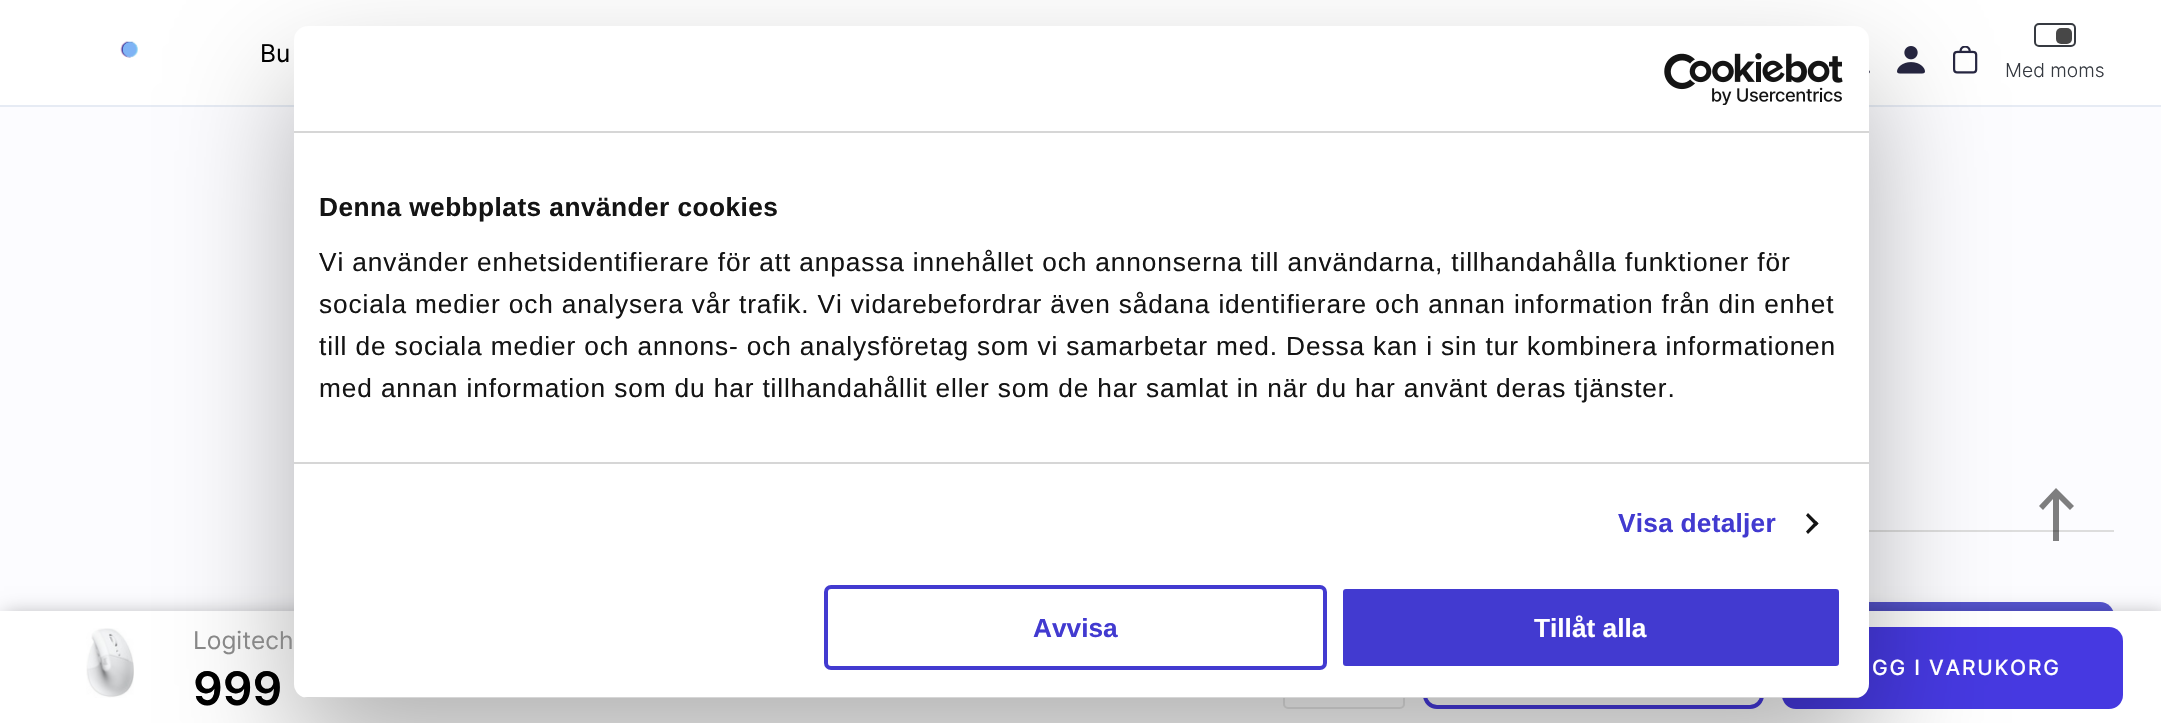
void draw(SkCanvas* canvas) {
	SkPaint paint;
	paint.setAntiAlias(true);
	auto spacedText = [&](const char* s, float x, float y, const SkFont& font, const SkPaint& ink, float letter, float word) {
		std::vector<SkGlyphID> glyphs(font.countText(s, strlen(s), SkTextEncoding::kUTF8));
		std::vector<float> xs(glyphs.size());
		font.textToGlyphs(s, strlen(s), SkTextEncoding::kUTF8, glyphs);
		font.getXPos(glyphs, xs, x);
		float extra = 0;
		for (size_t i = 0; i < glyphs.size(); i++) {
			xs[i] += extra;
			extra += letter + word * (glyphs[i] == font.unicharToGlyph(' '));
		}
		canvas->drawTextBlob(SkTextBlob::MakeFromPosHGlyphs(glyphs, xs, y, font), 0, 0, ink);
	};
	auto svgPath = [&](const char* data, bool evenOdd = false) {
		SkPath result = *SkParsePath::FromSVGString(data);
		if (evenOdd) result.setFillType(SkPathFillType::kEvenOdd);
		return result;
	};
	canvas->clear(0xfffcfcff);
	paint.setColor(0xffffffff);
	canvas->drawRect(SkRect::MakeXYWH(0, 0, 2161, 105), paint);
	paint.setColor(0xffe6ebf4);
	canvas->drawRect(SkRect::MakeXYWH(0, 105, 2161, 2), paint);
	canvas->drawImageRect(SkImages::DeferredFromEncodedData(SkData::MakeFromFileName("img1.png")), SkRect::MakeXYWH(120, 41, 18, 17), SkSamplingOptions());
	SkFont f1(fontMgr->matchFamilyStyle("Inter", SkFontStyle::Normal()), 24.5);
	f1.setSubpixel(true);
	paint.setColor(0xff000000);
	canvas->drawString("Bu", 260, 62, f1, paint);
	canvas->drawImageRect(SkImages::DeferredFromEncodedData(SkData::MakeFromFileName("img2.png")), SkRect::MakeXYWH(1869, 70, 1, 4), SkSamplingOptions());
	canvas->drawImageRect(SkImages::DeferredFromEncodedData(SkData::MakeFromFileName("img3.png")), SkRect::MakeXYWH(1897, 46, 28, 28), SkSamplingOptions());
	canvas->drawImageRect(SkImages::DeferredFromEncodedData(SkData::MakeFromFileName("img4.png")), SkRect::MakeXYWH(1953, 46, 25, 28), SkSamplingOptions());
	paint.setStroke(true);
	paint.setStrokeWidth(2);
	paint.setColor(0xff363a41);
	canvas->drawRoundRect(SkRect::MakeXYWH(2035, 24, 40, 22), 4, 4, paint);
	paint.setStroke(false);
	paint.setColor(0xff474747);
	canvas->drawRoundRect(SkRect::MakeXYWH(2056, 28, 16, 16), 5, 5, paint);
	SkFont f2(fontMgr->matchFamilyStyle("Inter", SkFontStyle(300, SkFontStyle::kNormal_Width, SkFontStyle::kUpright_Slant)), 19.25);
	f2.setSubpixel(true);
	paint.setColor(0xff363a41);
	canvas->drawString("Med moms", 2005, 77, f2, paint);
	paint.setColor(0xffdddddd);
	canvas->drawRect(SkRect::MakeXYWH(1869, 530, 245, 2), paint);
	paint.setColor(0x80000000);
	canvas->drawPath(svgPath("M2053 541V499L2043 510L2039 506L2056 488L2074 506L2070 510L2059 499V541Z"), paint);
	paint.setColor(0xff5655d1);
	canvas->drawRoundRect(SkRect::MakeXYWH(1341, 602, 773, 88), 14, 14, paint);
	paint.setColor(0x4d000000);
	paint.setMaskFilter(SkMaskFilter::MakeBlur(kNormal_SkBlurStyle, 9.5));
	canvas->drawRect(SkRect::MakeXYWH(4, 614, 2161, 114), paint);
	paint.setMaskFilter(nullptr);
	paint.setColor(0xffffffff);
	canvas->drawRect(SkRect::MakeXYWH(0, 611, 2161, 112), paint);
	canvas->drawImageRect(SkImages::DeferredFromEncodedData(SkData::MakeFromFileName("img6.png")), SkRect::MakeXYWH(86, 628, 48, 70), SkSamplingOptions());
	paint.setStroke(true);
	paint.setColor(0xffe8e8e8);
	canvas->drawRoundRect(SkRect::MakeXYWH(1284, 628, 120, 80), 4, 4, paint);
	paint.setStrokeWidth(4);
	paint.setColor(0xff4639e1);
	canvas->drawRoundRect(SkRect::MakeXYWH(1425, 629, 337, 78), 12, 12, paint);
	paint.setStroke(false);
	canvas->drawRoundRect(SkRect::MakeXYWH(1782, 627, 341, 82), 14, 14, paint);
	paint.setColor(0x4d000000);
	paint.setMaskFilter(SkMaskFilter::MakeBlur(kNormal_SkBlurStyle, 59.5));
	canvas->drawRoundRect(SkRect::MakeXYWH(294, 82, 1575, 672), 14, 14, paint);
	paint.setMaskFilter(nullptr);
	paint.setColor(0xffffffff);
	canvas->drawRoundRect(SkRect::MakeXYWH(294, 26, 1575, 672), 14, 14, paint);
	paint.setColor(0xffd6d6d6);
	canvas->drawRect(SkRect::MakeXYWH(294, 131, 1575, 2), paint);
	canvas->drawImageRect(SkImages::DeferredFromEncodedData(SkData::MakeFromFileName("img5.png")), SkRect::MakeXYWH(1664, 53, 179, 52), SkSamplingOptions());
	canvas->drawRect(SkRect::MakeXYWH(294, 462, 1575, 2), paint);
	SkFont f3(fontMgr->matchFamilyStyle("Liberation Sans", SkFontStyle::Bold()), 26.25);
	f3.setSubpixel(true);
	paint.setColor(0xff141414);
	spacedText("Denna webbplats använder cookies", 319, 216, f3, paint, 0.45, 0);
	SkFont f4(fontMgr->matchFamilyStyle("Liberation Sans", SkFontStyle::Normal()), 26.25);
	f4.setSubpixel(true);
	spacedText("Vi använder enhetsidentifierare för att anpassa innehållet och annonserna till användarna, tillhandahålla funktioner för", 319, 271, f4, paint, 0.88, 0);
	spacedText("sociala medier och analysera vår trafik. Vi vidarebefordrar även sådana identifierare och annan information från din enhet", 319, 313, f4, paint, 0.88, 0);
	spacedText("till de sociala medier och annons- och analysföretag som vi samarbetar med. Dessa kan i sin tur kombinera informationen", 319, 355, f4, paint, 0.88, 0);
	spacedText("med annan information som du har tillhandahållit eller som de har samlat in när du har använt deras tjänster.", 319, 397, f4, paint, 0.88, 0);
	paint.setColor(0xff423ad0);
	spacedText("Visa detaljer", 1618, 532, f3, paint, 0.25, 0);
	paint.setColor(0xff141414);
	canvas->drawPath(svgPath("M1808 513L1818.5 523.5L1816 526L1806 515.5Z"), paint);
	canvas->drawPath(svgPath("M1816 521L1818.5 523.5L1808 534L1806 531.5Z"), paint);
	canvas->save();
	canvas->clipPath(svgPath("M308 26H1855C1862.5 26 1869 32.5 1869 40V684C1869 691.5 1862.5 698 1855 698H308C300.5 698 294 691.5 294 684V40C294 32.5 300.5 26 308 26Z"), true);
	paint.setColor(0xffd6d6d6);
	canvas->drawRect(SkRect::MakeXYWH(303, 697, 1557, 1), paint);
	canvas->restore();
	paint.setStroke(true);
	paint.setColor(0xff423ad0);
	canvas->drawRoundRect(SkRect::MakeXYWH(826, 587, 499, 81), 5, 5, paint);
	paint.setStroke(false);
	canvas->drawString("Avvisa", 1033, 637, f3, paint);
	canvas->drawRoundRect(SkRect::MakeXYWH(1341, 587, 500, 81), 5, 5, paint);
	paint.setStroke(true);
	paint.setColor(0xffffffff);
	canvas->drawRoundRect(SkRect::MakeXYWH(1341, 587, 500, 81), 5, 5, paint);
	paint.setStroke(false);
	canvas->drawString("Tillåt alla", 1534, 637, f3, paint);
	paint.setColor(0xff888888);
	canvas->drawString("Logitech", 193, 649, f1, paint);
	SkFont f5(fontMgr->matchFamilyStyle("Inter", SkFontStyle(600, SkFontStyle::kNormal_Width, SkFontStyle::kUpright_Slant)), 46);
	f5.setSubpixel(true);
	paint.setColor(0xff000000);
	canvas->drawString("999", 193, 705, f5, paint);
	SkFont f6(fontMgr->matchFamilyStyle("Inter", SkFontStyle(500, SkFontStyle::kNormal_Width, SkFontStyle::kUpright_Slant)), 21);
	f6.setSubpixel(true);
	paint.setColor(0xffffffff);
	spacedText("GG I VARUKORG", 1872, 675, f6, paint, 1.75, 0);
}
